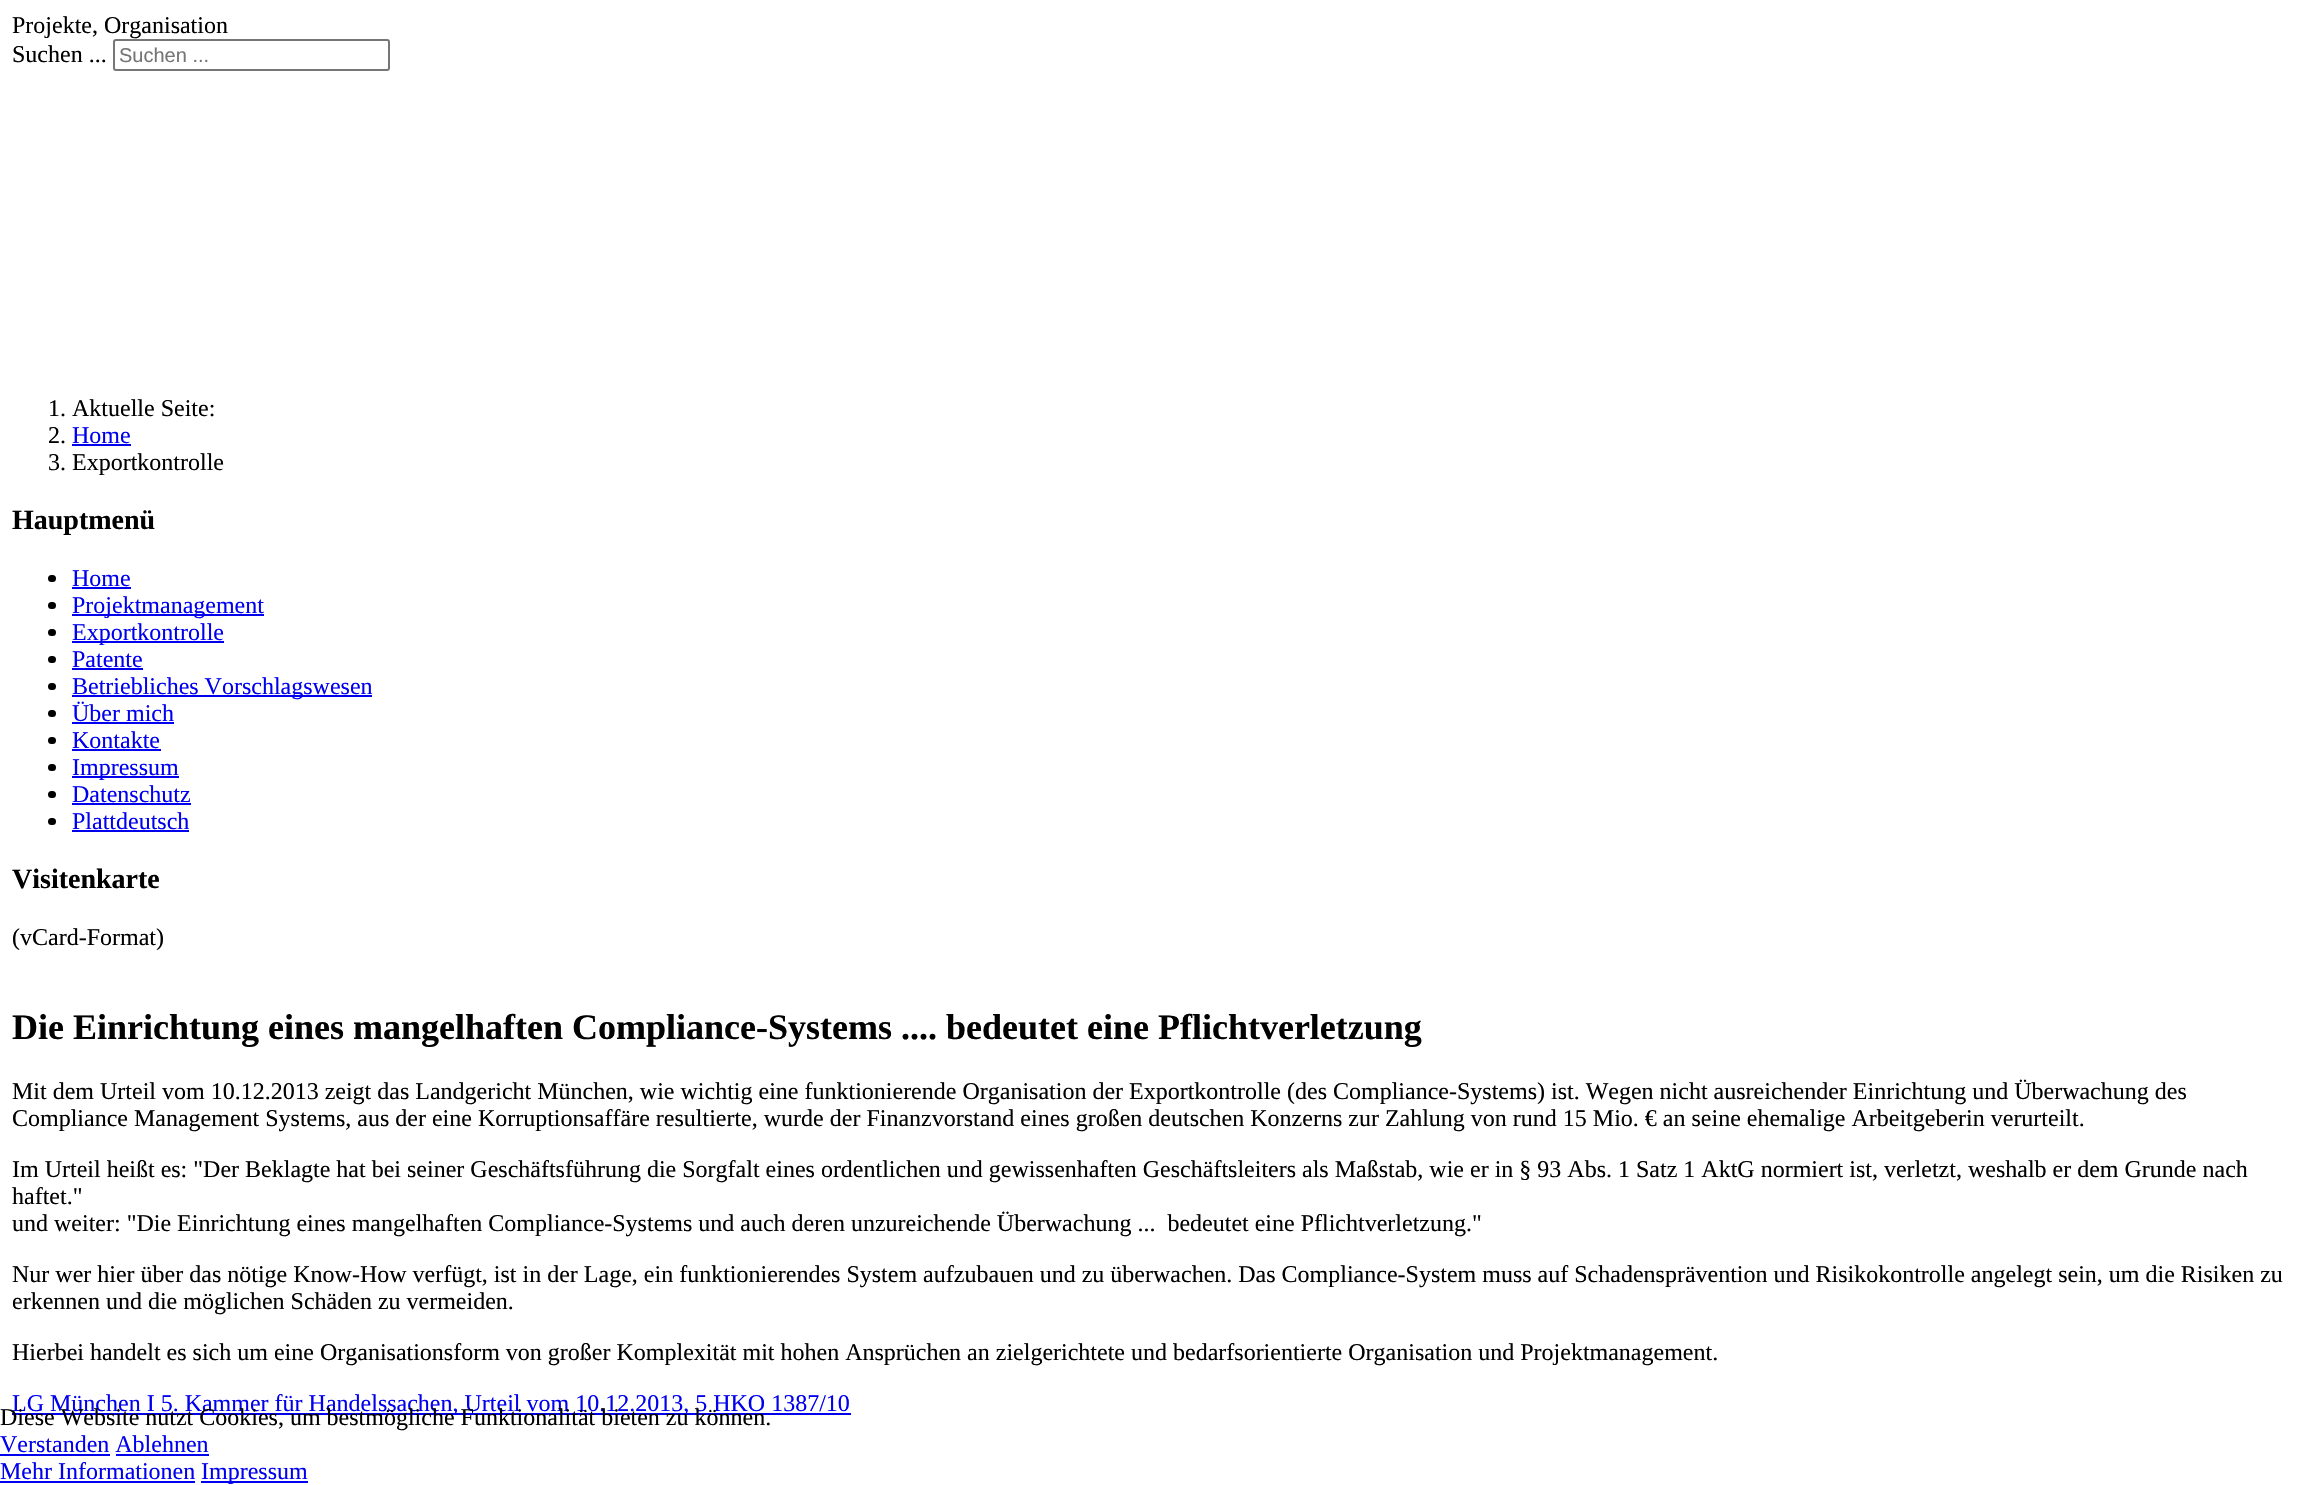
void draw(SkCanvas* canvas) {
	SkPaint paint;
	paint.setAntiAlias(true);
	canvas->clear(0xffffffff);
	SkFont f1(fontMgr->matchFamilyStyle("Liberation Serif", SkFontStyle::Normal()), 24);
	f1.setSubpixel(true);
	paint.setColor(0xff000000);
	canvas->drawString("Projekte, Organisation", 12, 33, f1, paint);
	canvas->drawString("Suchen ...", 12, 62, f1, paint);
	paint.setStroke(true);
	paint.setStrokeWidth(2);
	paint.setColor(0xff767676);
	canvas->drawRoundRect(SkRect::MakeXYWH(114, 40, 275, 30), 2, 2, paint);
	SkFont f2(fontMgr->matchFamilyStyle("Liberation Sans", SkFontStyle::Normal()), 20);
	f2.setSubpixel(true);
	paint.setStroke(false);
	paint.setColor(0xff757575);
	canvas->drawString("Suchen ...", 119, 62, f2, paint);
	paint.setColor(0xff000000);
	canvas->drawString("1. Aktuelle Seite:", 48, 416, f1, paint);
	canvas->drawString("2.", 48, 443, f1, paint);
	paint.setColor(0xff0000ee);
	canvas->drawString("Home", 72, 443, f1, paint);
	canvas->drawRect(SkRect::MakeXYWH(72, 444, 59, 2), paint);
	paint.setColor(0xff000000);
	canvas->drawString("3. Exportkontrolle", 48, 470, f1, paint);
	SkFont f3(fontMgr->matchFamilyStyle("Liberation Serif", SkFontStyle::Bold()), 28);
	f3.setSubpixel(true);
	canvas->drawString("Hauptmenü", 12, 529, f3, paint);
	canvas->drawRoundRect(SkRect::MakeXYWH(48, 575, 8, 7), 3.5, 3.5, paint);
	paint.setColor(0xff0000ee);
	canvas->drawString("Home", 72, 586, f1, paint);
	canvas->drawRect(SkRect::MakeXYWH(72, 587, 59, 2), paint);
	paint.setColor(0xff000000);
	canvas->drawRoundRect(SkRect::MakeXYWH(48, 602, 8, 7), 3.5, 3.5, paint);
	paint.setColor(0xff0000ee);
	canvas->drawRect(SkRect::MakeXYWH(72, 614, 192, 2), paint);
	canvas->drawString("Projektmanagement", 72, 613, f1, paint);
	paint.setColor(0xff000000);
	canvas->drawRoundRect(SkRect::MakeXYWH(48, 629, 8, 7), 3.5, 3.5, paint);
	paint.setColor(0xff0000ee);
	canvas->drawRect(SkRect::MakeXYWH(72, 641, 152, 2), paint);
	canvas->drawString("Exportkontrolle", 72, 640, f1, paint);
	paint.setColor(0xff000000);
	canvas->drawRoundRect(SkRect::MakeXYWH(48, 656, 8, 7), 3.5, 3.5, paint);
	paint.setColor(0xff0000ee);
	canvas->drawString("Patente", 72, 667, f1, paint);
	canvas->drawRect(SkRect::MakeXYWH(72, 668, 71, 2), paint);
	paint.setColor(0xff000000);
	canvas->drawRoundRect(SkRect::MakeXYWH(48, 683, 8, 7), 3.5, 3.5, paint);
	paint.setColor(0xff0000ee);
	canvas->drawRect(SkRect::MakeXYWH(72, 695, 300, 2), paint);
	canvas->drawString("Betriebliches Vorschlagswesen", 72, 694, f1, paint);
	paint.setColor(0xff000000);
	canvas->drawRoundRect(SkRect::MakeXYWH(48, 710, 8, 7), 3.5, 3.5, paint);
	paint.setColor(0xff0000ee);
	canvas->drawString("Über mich", 72, 721, f1, paint);
	canvas->drawRect(SkRect::MakeXYWH(72, 722, 102, 2), paint);
	paint.setColor(0xff000000);
	canvas->drawRoundRect(SkRect::MakeXYWH(48, 737, 8, 7), 3.5, 3.5, paint);
	paint.setColor(0xff0000ee);
	canvas->drawString("Kontakte", 72, 748, f1, paint);
	canvas->drawRect(SkRect::MakeXYWH(72, 749, 89, 2), paint);
	paint.setColor(0xff000000);
	canvas->drawRoundRect(SkRect::MakeXYWH(48, 764, 8, 7), 3.5, 3.5, paint);
	paint.setColor(0xff0000ee);
	canvas->drawRect(SkRect::MakeXYWH(72, 776, 107, 2), paint);
	canvas->drawString("Impressum", 72, 775, f1, paint);
	paint.setColor(0xff000000);
	canvas->drawRoundRect(SkRect::MakeXYWH(48, 791, 8, 7), 3.5, 3.5, paint);
	paint.setColor(0xff0000ee);
	canvas->drawString("Datenschutz", 72, 802, f1, paint);
	canvas->drawRect(SkRect::MakeXYWH(72, 803, 119, 2), paint);
	paint.setColor(0xff000000);
	canvas->drawRoundRect(SkRect::MakeXYWH(48, 818, 8, 7), 3.5, 3.5, paint);
	paint.setColor(0xff0000ee);
	canvas->drawString("Plattdeutsch", 72, 829, f1, paint);
	canvas->drawRect(SkRect::MakeXYWH(72, 830, 117, 2), paint);
	paint.setColor(0xff000000);
	canvas->drawString("Visitenkarte", 12, 888, f3, paint);
	canvas->drawString("(vCard-Format)", 12, 945, f1, paint);
	SkFont f4(fontMgr->matchFamilyStyle("Liberation Serif", SkFontStyle::Bold()), 36);
	f4.setSubpixel(true);
	canvas->drawString("Die Einrichtung eines mangelhaften Compliance-Systems .... bedeutet eine Pflichtverletzung", 12, 1039, f4, paint);
	canvas->drawString("Mit dem Urteil vom 10.12.2013 zeigt das Landgericht München, wie wichtig eine funktionierende Organisation der Exportkontrolle (des Compliance-Systems) ist. Wegen nicht ausreichender Einrichtung und Überwachung des", 12, 1099, f1, paint);
	canvas->drawString("Compliance Management Systems, aus der eine Korruptionsaffäre resultierte, wurde der Finanzvorstand eines großen deutschen Konzerns zur Zahlung von rund 15 Mio. € an seine ehemalige Arbeitgeberin verurteilt.", 12, 1126, f1, paint);
	canvas->drawString("Im Urteil heißt es: \"Der Beklagte hat bei seiner Geschäftsführung die Sorgfalt eines ordentlichen und gewissenhaften Geschäftsleiters als Maßstab, wie er in § 93 Abs. 1 Satz 1 AktG normiert ist, verletzt, weshalb er dem Grunde nach", 12, 1177, f1, paint);
	canvas->drawString("haftet.\"", 12, 1204, f1, paint);
	canvas->drawString("und weiter: \"Die Einrichtung eines mangelhaften Compliance-Systems und auch deren unzureichende Überwachung ...  bedeutet eine Pflichtverletzung.\"", 12, 1231, f1, paint);
	canvas->drawString("Nur wer hier über das nötige Know-How verfügt, ist in der Lage, ein funktionierendes System aufzubauen und zu überwachen. Das Compliance-System muss auf Schadensprävention und Risikokontrolle angelegt sein, um die Risiken zu", 12, 1282, f1, paint);
	canvas->drawString("erkennen und die möglichen Schäden zu vermeiden.", 12, 1309, f1, paint);
	canvas->drawString("Hierbei handelt es sich um eine Organisationsform von großer Komplexität mit hohen Ansprüchen an zielgerichtete und bedarfsorientierte Organisation und Projektmanagement.", 12, 1360, f1, paint);
	paint.setColor(0xff0000ee);
	canvas->drawRect(SkRect::MakeXYWH(12, 1413, 839, 2), paint);
	canvas->drawString("LG München I 5. Kammer für Handelssachen, Urteil vom 10.12.2013, 5 HKO 1387/10", 12, 1411, f1, paint);
	paint.setColor(0xff000000);
	canvas->drawString("Diese Website nutzt Cookies, um bestmögliche Funktionalität bieten zu können.", 0, 1425, f1, paint);
	paint.setColor(0xff0000ee);
	canvas->drawString("Verstanden Ablehnen", 0, 1452, f1, paint);
	canvas->drawRect(SkRect::MakeXYWH(0, 1454, 110, 2), paint);
	canvas->drawRect(SkRect::MakeXYWH(116, 1454, 93, 2), paint);
	canvas->drawString("Mehr Informationen", 0, 1479, f1, paint);
	canvas->drawRect(SkRect::MakeXYWH(0, 1481, 195, 2), paint);
	canvas->drawRect(SkRect::MakeXYWH(201, 1481, 107, 2), paint);
	canvas->drawString("Impressum", 201, 1479, f1, paint);
}
